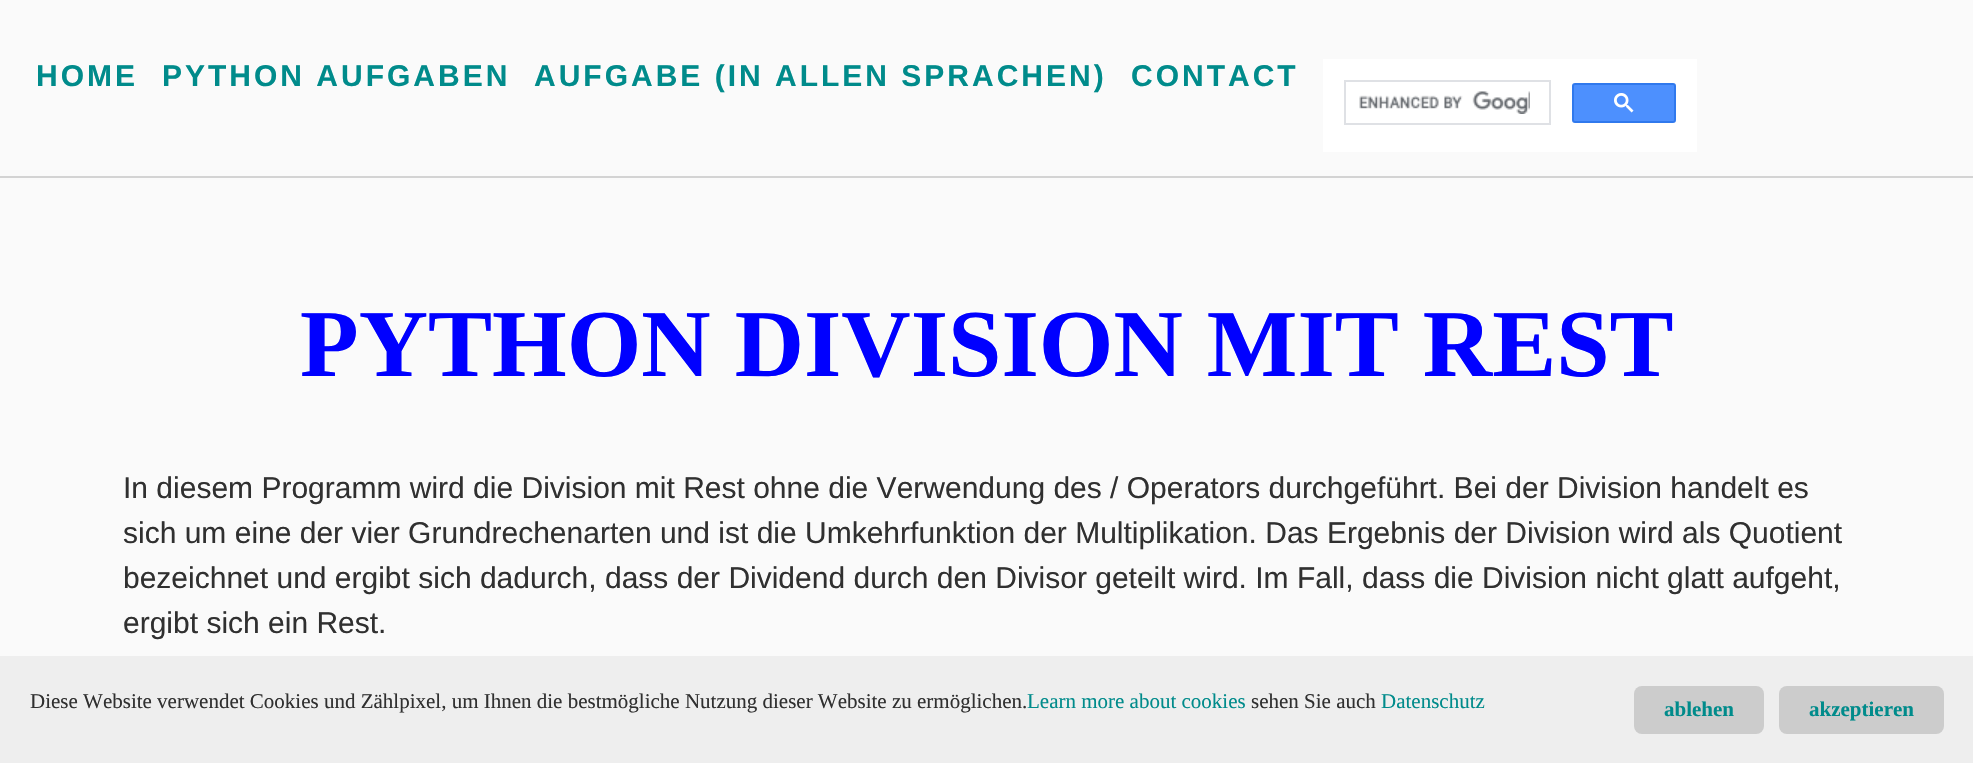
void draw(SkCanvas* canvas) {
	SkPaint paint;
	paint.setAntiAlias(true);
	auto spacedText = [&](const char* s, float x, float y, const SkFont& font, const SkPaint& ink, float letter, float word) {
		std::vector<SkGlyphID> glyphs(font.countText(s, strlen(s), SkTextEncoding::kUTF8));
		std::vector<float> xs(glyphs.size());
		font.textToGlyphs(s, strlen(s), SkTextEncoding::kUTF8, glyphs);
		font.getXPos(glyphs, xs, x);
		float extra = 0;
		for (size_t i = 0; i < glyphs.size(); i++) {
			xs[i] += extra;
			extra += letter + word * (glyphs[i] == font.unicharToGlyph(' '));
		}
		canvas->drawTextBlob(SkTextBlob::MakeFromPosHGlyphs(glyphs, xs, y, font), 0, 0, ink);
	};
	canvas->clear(0xfffafafa);
	paint.setColor(0xffd3d3d3);
	canvas->drawRect(SkRect::MakeXYWH(0, 176, 1973, 2), paint);
	SkFont f1(fontMgr->matchFamilyStyle("Liberation Sans", SkFontStyle::Bold()), 30);
	f1.setSubpixel(true);
	paint.setColor(0xff008b8b);
	spacedText("HOME", 36, 86, f1, paint, 3, 0);
	spacedText("PYTHON AUFGABEN", 162, 86, f1, paint, 3, 0);
	spacedText("AUFGABE (IN ALLEN SPRACHEN)", 534, 86, f1, paint, 3, 0);
	spacedText("CONTACT", 1131, 86, f1, paint, 3, 0);
	paint.setColor(0xffffffff);
	canvas->drawRect(SkRect::MakeXYWH(1323, 59, 374, 93), paint);
	paint.setStroke(true);
	paint.setStrokeWidth(2);
	paint.setColor(0xffdfe1e5);
	canvas->drawRect(SkRect::MakeXYWH(1345, 81, 205, 43), paint);
	canvas->drawImageRect(SkImages::DeferredFromEncodedData(SkData::MakeFromFileName("img1.png")), SkRect::MakeXYWH(1359, 91, 171, 23), SkSamplingOptions());
	paint.setStroke(false);
	paint.setColor(0xff4d90fe);
	canvas->drawRoundRect(SkRect::MakeXYWH(1573, 84, 102, 38), 2, 2, paint);
	paint.setStroke(true);
	paint.setColor(0xff3079ed);
	canvas->drawRoundRect(SkRect::MakeXYWH(1573, 84, 102, 38), 2, 2, paint);
	canvas->drawImageRect(SkImages::DeferredFromEncodedData(SkData::MakeFromFileName("img2.png")), SkRect::MakeXYWH(1614, 93, 20, 20), SkSamplingOptions());
	SkFont f2(fontMgr->matchFamilyStyle("Liberation Serif", SkFontStyle::Bold()), 96);
	f2.setSubpixel(true);
	paint.setStroke(false);
	paint.setColor(0xff0000ff);
	canvas->drawString("PYTHON DIVISION MIT REST", 300, 376, f2, paint);
	SkFont f3(fontMgr->matchFamilyStyle("Liberation Sans", SkFontStyle::Normal()), 30);
	f3.setSubpixel(true);
	paint.setColor(0xff303030);
	canvas->drawString("In diesem Programm wird die Division mit Rest ohne die Verwendung des / Operators durchgeführt. Bei der Division handelt es", 123, 498, f3, paint);
	canvas->drawString("sich um eine der vier Grundrechenarten und ist die Umkehrfunktion der Multiplikation. Das Ergebnis der Division wird als Quotient", 123, 543, f3, paint);
	canvas->drawString("bezeichnet und ergibt sich dadurch, dass der Dividend durch den Divisor geteilt wird. Im Fall, dass die Division nicht glatt aufgeht,", 123, 588, f3, paint);
	canvas->drawString("ergibt sich ein Rest.", 123, 633, f3, paint);
	paint.setColor(0xffeeeeee);
	canvas->drawRect(SkRect::MakeXYWH(0, 656, 1973, 107), paint);
	SkFont f4(fontMgr->matchFamilyStyle("Liberation Serif", SkFontStyle::Normal()), 21);
	f4.setSubpixel(true);
	paint.setColor(0xff303030);
	canvas->drawString("Diese Website verwendet Cookies und Zählpixel, um Ihnen die bestmögliche Nutzung dieser Website zu ermöglichen.", 30, 708, f4, paint);
	paint.setColor(0xff008b8b);
	canvas->drawString("Learn more about cookies", 1027, 708, f4, paint);
	paint.setColor(0xff303030);
	canvas->drawString("sehen Sie auch", 1251, 708, f4, paint);
	paint.setColor(0xff008b8b);
	canvas->drawString("Datenschutz", 1381, 708, f4, paint);
	paint.setColor(0xffcccccc);
	canvas->drawRoundRect(SkRect::MakeXYWH(1634, 686, 130, 48), 8, 8, paint);
	SkFont f5(fontMgr->matchFamilyStyle("Liberation Serif", SkFontStyle::Bold()), 21);
	f5.setSubpixel(true);
	paint.setColor(0xff008b8b);
	canvas->drawString("ablehen", 1664, 716, f5, paint);
	paint.setColor(0xffcccccc);
	canvas->drawRoundRect(SkRect::MakeXYWH(1779, 686, 165, 48), 8, 8, paint);
	paint.setColor(0xff008b8b);
	canvas->drawString("akzeptieren", 1809, 716, f5, paint);
}
